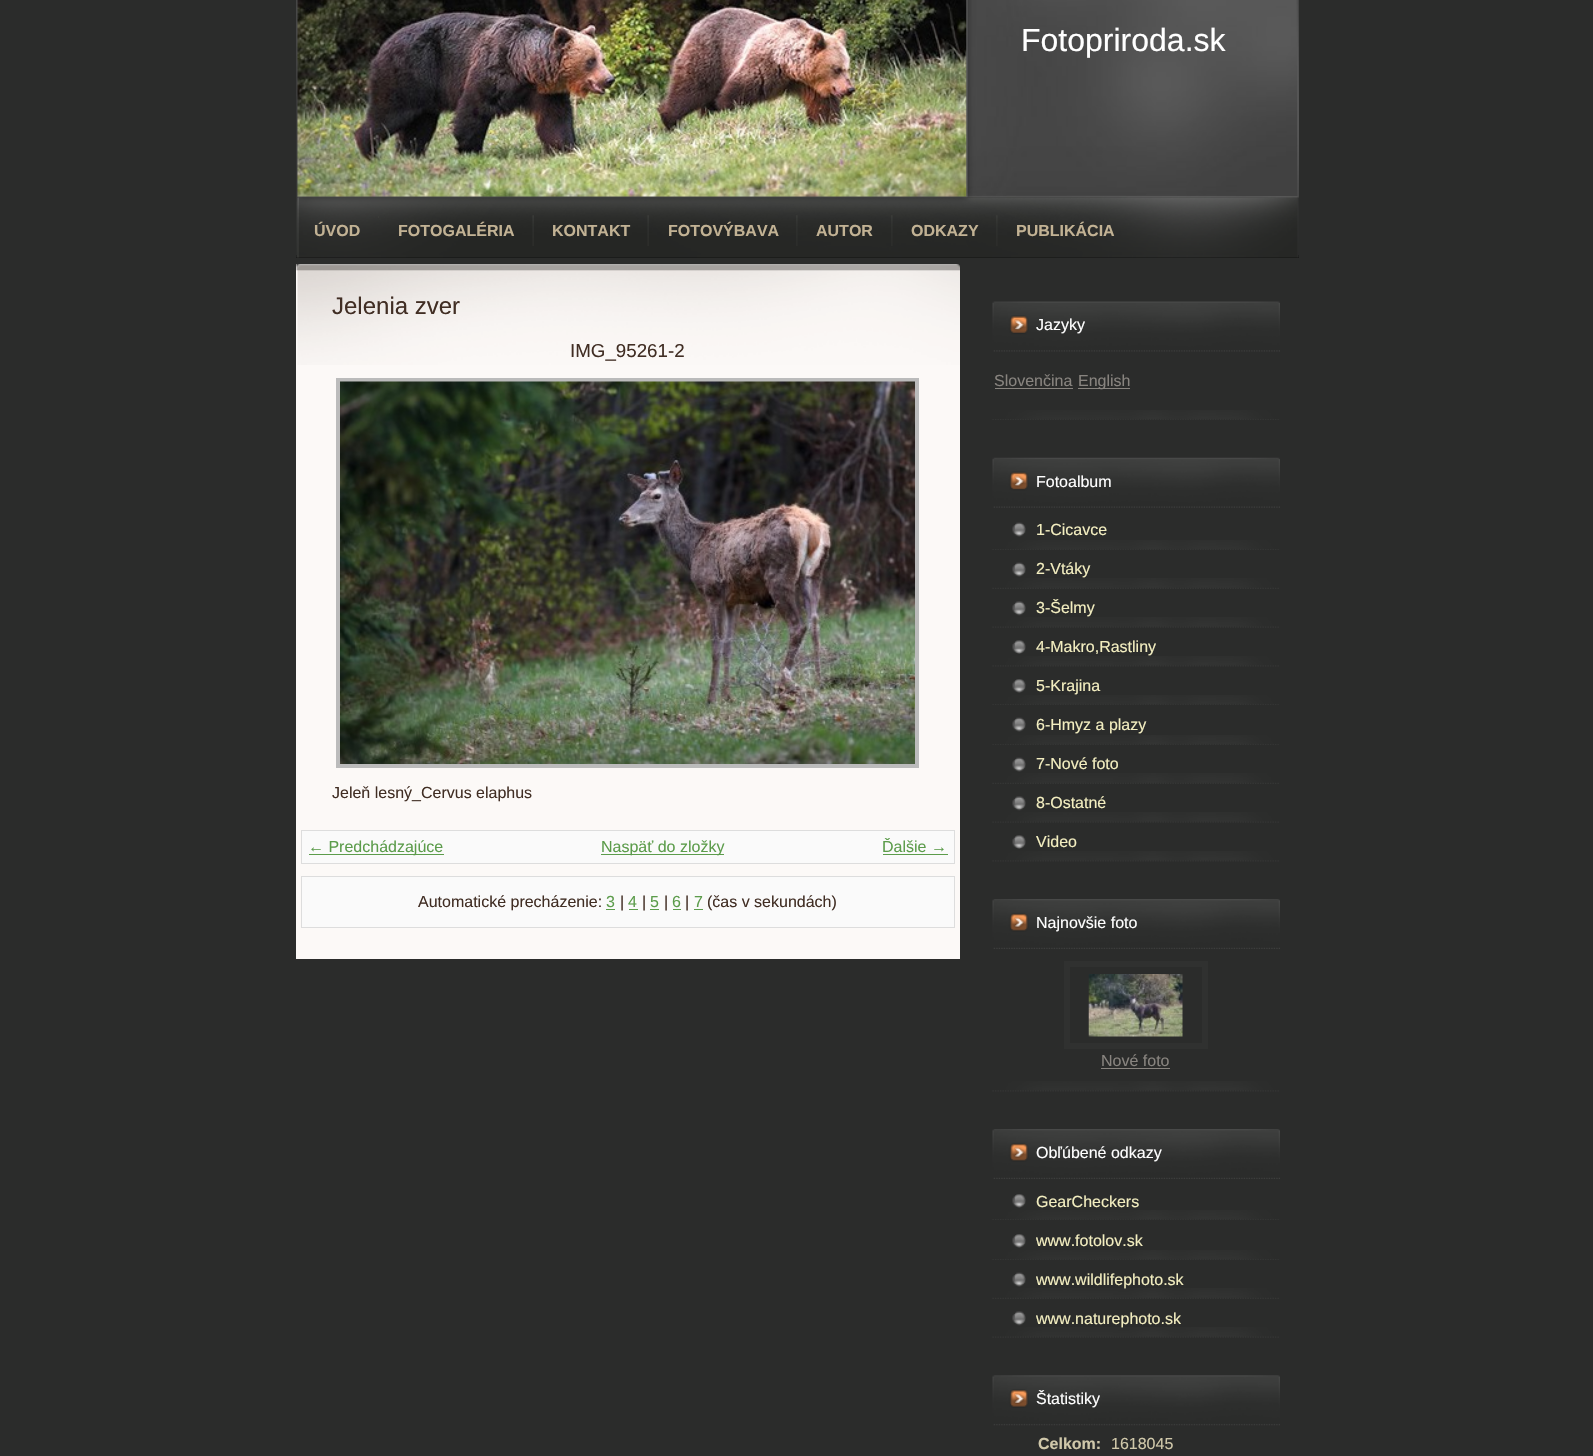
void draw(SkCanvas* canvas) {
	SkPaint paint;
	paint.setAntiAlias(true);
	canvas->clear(0xff2b2c2b);
	canvas->drawImageRect(SkImages::DeferredFromEncodedData(SkData::MakeFromFileName("img1.png")), SkRect::MakeXYWH(296, 0, 1003, 198), SkSamplingOptions());
	canvas->drawImageRect(SkImages::DeferredFromEncodedData(SkData::MakeFromFileName("img2.png")), SkRect::MakeXYWH(297, 0, 670, 197), SkSamplingOptions());
	SkFont f1(fontMgr->matchFamilyStyle("Liberation Sans", SkFontStyle::Normal()), 32);
	f1.setSubpixel(true);
	paint.setColor(0xffffffff);
	canvas->drawString("Fotopriroda.sk", 1021, 51, f1, paint);
	paint.setColor(0xff000000);
	canvas->drawRect(SkRect::MakeXYWH(296, 198, 1003, 60), paint);
	canvas->drawImageRect(SkImages::DeferredFromEncodedData(SkData::MakeFromFileName("img3.png")), SkRect::MakeXYWH(296, 197, 1003, 61), SkSamplingOptions());
	canvas->drawImageRect(SkImages::DeferredFromEncodedData(SkData::MakeFromFileName("img4.png")), SkRect::MakeXYWH(296, 197, 1003, 58), SkSamplingOptions());
	paint.setColor(0xff3a3b38);
	canvas->drawRect(SkRect::MakeXYWH(378, 216, 1, 2), paint);
	SkFont f2(fontMgr->matchFamilyStyle("Liberation Sans", SkFontStyle::Bold()), 16);
	f2.setSubpixel(true);
	paint.setColor(0xffc2b294);
	canvas->drawString("ÚVOD", 314, 236, f2, paint);
	canvas->drawImageRect(SkImages::DeferredFromEncodedData(SkData::MakeFromFileName("img5.png")), SkRect::MakeXYWH(532, 215, 2, 31), SkSamplingOptions());
	canvas->drawString("FOTOGALÉRIA", 398, 236, f2, paint);
	canvas->drawImageRect(SkImages::DeferredFromEncodedData(SkData::MakeFromFileName("img6.png")), SkRect::MakeXYWH(647, 215, 2, 31), SkSamplingOptions());
	canvas->drawString("KONTAKT", 552, 236, f2, paint);
	canvas->drawImageRect(SkImages::DeferredFromEncodedData(SkData::MakeFromFileName("img7.png")), SkRect::MakeXYWH(796, 215, 2, 31), SkSamplingOptions());
	canvas->drawString("FOTOVÝBAVA", 668, 236, f2, paint);
	canvas->drawImageRect(SkImages::DeferredFromEncodedData(SkData::MakeFromFileName("img8.png")), SkRect::MakeXYWH(891, 215, 2, 31), SkSamplingOptions());
	canvas->drawString("AUTOR", 816, 236, f2, paint);
	canvas->drawImageRect(SkImages::DeferredFromEncodedData(SkData::MakeFromFileName("img9.png")), SkRect::MakeXYWH(996, 215, 2, 31), SkSamplingOptions());
	canvas->drawString("ODKAZY", 911, 236, f2, paint);
	canvas->drawString("PUBLIKÁCIA", 1016, 236, f2, paint);
	paint.setColor(0xfffcf9f7);
	canvas->drawRect(SkRect::MakeXYWH(296, 264, 664, 695), paint);
	canvas->drawImageRect(SkImages::DeferredFromEncodedData(SkData::MakeFromFileName("img10.png")), SkRect::MakeXYWH(296, 264, 664, 101), SkSamplingOptions());
	SkFont f3(fontMgr->matchFamilyStyle("Liberation Sans", SkFontStyle::Normal()), 24);
	f3.setSubpixel(true);
	paint.setColor(0xff412e24);
	canvas->drawString("Jelenia zver", 332, 314, f3, paint);
	SkFont f4(fontMgr->matchFamilyStyle("Liberation Sans", SkFontStyle::Normal()), 18.75);
	f4.setSubpixel(true);
	canvas->drawString("IMG_95261-2", 570, 357, f4, paint);
	paint.setStroke(true);
	paint.setStrokeWidth(4);
	paint.setColor(0xffbbbbbb);
	canvas->drawRect(SkRect::MakeXYWH(338, 380, 579, 386), paint);
	canvas->drawImageRect(SkImages::DeferredFromEncodedData(SkData::MakeFromFileName("img11.png")), SkRect::MakeXYWH(340, 381, 575, 383), SkSamplingOptions());
	SkFont f5(fontMgr->matchFamilyStyle("Liberation Sans", SkFontStyle::Normal()), 16);
	f5.setSubpixel(true);
	paint.setStroke(false);
	paint.setColor(0xff412e24);
	canvas->drawString("Jeleň lesný_Cervus elaphus", 332, 798, f5, paint);
	paint.setColor(0xfffafafa);
	canvas->drawRect(SkRect::MakeXYWH(301.5, 830.5, 653, 33), paint);
	paint.setStroke(true);
	paint.setStrokeWidth(1);
	paint.setColor(0xffdddddd);
	canvas->drawRect(SkRect::MakeXYWH(301.5, 830.5, 653, 33), paint);
	paint.setStroke(false);
	paint.setColor(0xff5c9c4b);
	canvas->drawRect(SkRect::MakeXYWH(309, 854, 135, 1), paint);
	canvas->drawString("← Predchádzajúce", 308, 852, f5, paint);
	canvas->drawRect(SkRect::MakeXYWH(601, 854, 123, 1), paint);
	canvas->drawString("Naspäť do zložky", 601, 852, f5, paint);
	canvas->drawString("Ďalšie →", 882, 852, f5, paint);
	canvas->drawRect(SkRect::MakeXYWH(883, 854, 65, 1), paint);
	paint.setColor(0xfffafafa);
	canvas->drawRect(SkRect::MakeXYWH(301.5, 876.5, 653, 51), paint);
	paint.setStroke(true);
	paint.setColor(0xffdddddd);
	canvas->drawRect(SkRect::MakeXYWH(301.5, 876.5, 653, 51), paint);
	paint.setStroke(false);
	paint.setColor(0xff412e24);
	canvas->drawString("Automatické precházenie:", 418, 907, f5, paint);
	paint.setColor(0xff5c9c4b);
	canvas->drawString("3", 606, 907, f5, paint);
	canvas->drawRect(SkRect::MakeXYWH(606, 909, 9, 1), paint);
	paint.setColor(0xff412e24);
	canvas->drawString("|", 620, 907, f5, paint);
	paint.setColor(0xff5c9c4b);
	canvas->drawString("4", 628, 907, f5, paint);
	canvas->drawRect(SkRect::MakeXYWH(629, 909, 9, 1), paint);
	paint.setColor(0xff412e24);
	canvas->drawString("|", 642, 907, f5, paint);
	paint.setColor(0xff5c9c4b);
	canvas->drawString("5", 650, 907, f5, paint);
	canvas->drawRect(SkRect::MakeXYWH(650, 909, 9, 1), paint);
	paint.setColor(0xff412e24);
	canvas->drawString("|", 664, 907, f5, paint);
	paint.setColor(0xff5c9c4b);
	canvas->drawString("6", 672, 907, f5, paint);
	canvas->drawRect(SkRect::MakeXYWH(673, 909, 8, 1), paint);
	paint.setColor(0xff412e24);
	canvas->drawString("|", 685, 907, f5, paint);
	paint.setColor(0xff5c9c4b);
	canvas->drawString("7", 694, 907, f5, paint);
	canvas->drawRect(SkRect::MakeXYWH(694, 909, 9, 1), paint);
	paint.setColor(0xff412e24);
	canvas->drawString("(čas v sekundách)", 707, 907, f5, paint);
	canvas->drawImageRect(SkImages::DeferredFromEncodedData(SkData::MakeFromFileName("img12.png")), SkRect::MakeXYWH(992, 301, 288, 51), SkSamplingOptions());
	paint.setColor(0xffffffff);
	canvas->drawString("Jazyky", 1036, 330, f5, paint);
	canvas->drawImageRect(SkImages::DeferredFromEncodedData(SkData::MakeFromFileName("img13.png")), SkRect::MakeXYWH(992, 410, 287, 10), SkSamplingOptions());
	paint.setColor(0xff88847f);
	canvas->drawString("Slovenčina", 994, 386, f5, paint);
	canvas->drawRect(SkRect::MakeXYWH(995, 388, 78, 1), paint);
	canvas->drawRect(SkRect::MakeXYWH(1078, 388, 52, 1), paint);
	canvas->drawString("English", 1078, 386, f5, paint);
	canvas->drawImageRect(SkImages::DeferredFromEncodedData(SkData::MakeFromFileName("img14.png")), SkRect::MakeXYWH(992, 457, 288, 51), SkSamplingOptions());
	paint.setColor(0xffffffff);
	canvas->drawString("Fotoalbum", 1036, 487, f5, paint);
	canvas->drawImageRect(SkImages::DeferredFromEncodedData(SkData::MakeFromFileName("img15.png")), SkRect::MakeXYWH(992, 851, 287, 11), SkSamplingOptions());
	canvas->drawImageRect(SkImages::DeferredFromEncodedData(SkData::MakeFromFileName("img13.png")), SkRect::MakeXYWH(992, 540, 287, 10), SkSamplingOptions());
	canvas->drawImageRect(SkImages::DeferredFromEncodedData(SkData::MakeFromFileName("img16.png")), SkRect::MakeXYWH(1012, 522, 14, 15), SkSamplingOptions());
	paint.setColor(0xfff3eec0);
	canvas->drawString("1-Cicavce", 1036, 535, f5, paint);
	canvas->drawImageRect(SkImages::DeferredFromEncodedData(SkData::MakeFromFileName("img17.png")), SkRect::MakeXYWH(992, 578, 287, 11), SkSamplingOptions());
	canvas->drawImageRect(SkImages::DeferredFromEncodedData(SkData::MakeFromFileName("img16.png")), SkRect::MakeXYWH(1012, 562, 14, 15), SkSamplingOptions());
	canvas->drawString("2-Vtáky", 1036, 574, f5, paint);
	canvas->drawImageRect(SkImages::DeferredFromEncodedData(SkData::MakeFromFileName("img18.png")), SkRect::MakeXYWH(992, 617, 287, 11), SkSamplingOptions());
	canvas->drawImageRect(SkImages::DeferredFromEncodedData(SkData::MakeFromFileName("img19.png")), SkRect::MakeXYWH(1012, 601, 14, 15), SkSamplingOptions());
	canvas->drawString("3-Šelmy", 1036, 613, f5, paint);
	canvas->drawImageRect(SkImages::DeferredFromEncodedData(SkData::MakeFromFileName("img15.png")), SkRect::MakeXYWH(992, 656, 287, 11), SkSamplingOptions());
	canvas->drawImageRect(SkImages::DeferredFromEncodedData(SkData::MakeFromFileName("img20.png")), SkRect::MakeXYWH(1012, 640, 14, 14), SkSamplingOptions());
	canvas->drawString("4-Makro,Rastliny", 1036, 652, f5, paint);
	canvas->drawImageRect(SkImages::DeferredFromEncodedData(SkData::MakeFromFileName("img13.png")), SkRect::MakeXYWH(992, 695, 287, 10), SkSamplingOptions());
	canvas->drawImageRect(SkImages::DeferredFromEncodedData(SkData::MakeFromFileName("img21.png")), SkRect::MakeXYWH(1012, 679, 14, 14), SkSamplingOptions());
	canvas->drawString("5-Krajina", 1036, 691, f5, paint);
	canvas->drawImageRect(SkImages::DeferredFromEncodedData(SkData::MakeFromFileName("img13.png")), SkRect::MakeXYWH(992, 735, 287, 10), SkSamplingOptions());
	canvas->drawImageRect(SkImages::DeferredFromEncodedData(SkData::MakeFromFileName("img16.png")), SkRect::MakeXYWH(1012, 717, 14, 15), SkSamplingOptions());
	canvas->drawString("6-Hmyz a plazy", 1036, 730, f5, paint);
	canvas->drawImageRect(SkImages::DeferredFromEncodedData(SkData::MakeFromFileName("img17.png")), SkRect::MakeXYWH(992, 773, 287, 11), SkSamplingOptions());
	canvas->drawImageRect(SkImages::DeferredFromEncodedData(SkData::MakeFromFileName("img16.png")), SkRect::MakeXYWH(1012, 757, 14, 15), SkSamplingOptions());
	canvas->drawString("7-Nové foto", 1036, 769, f5, paint);
	canvas->drawImageRect(SkImages::DeferredFromEncodedData(SkData::MakeFromFileName("img18.png")), SkRect::MakeXYWH(992, 812, 287, 11), SkSamplingOptions());
	canvas->drawImageRect(SkImages::DeferredFromEncodedData(SkData::MakeFromFileName("img19.png")), SkRect::MakeXYWH(1012, 796, 14, 15), SkSamplingOptions());
	canvas->drawString("8-Ostatné", 1036, 808, f5, paint);
	canvas->drawImageRect(SkImages::DeferredFromEncodedData(SkData::MakeFromFileName("img20.png")), SkRect::MakeXYWH(1012, 835, 14, 14), SkSamplingOptions());
	canvas->drawString("Video", 1036, 847, f5, paint);
	canvas->drawImageRect(SkImages::DeferredFromEncodedData(SkData::MakeFromFileName("img22.png")), SkRect::MakeXYWH(992, 899, 288, 50), SkSamplingOptions());
	paint.setColor(0xffffffff);
	canvas->drawString("Najnovšie foto", 1036, 928, f5, paint);
	canvas->drawImageRect(SkImages::DeferredFromEncodedData(SkData::MakeFromFileName("img15.png")), SkRect::MakeXYWH(992, 1081, 287, 11), SkSamplingOptions());
	paint.setStroke(true);
	paint.setStrokeWidth(6);
	paint.setColor(0xff303130);
	canvas->drawRect(SkRect::MakeXYWH(1067, 964, 138, 82), paint);
	canvas->drawImageRect(SkImages::DeferredFromEncodedData(SkData::MakeFromFileName("img23.png")), SkRect::MakeXYWH(1088, 974, 95, 63), SkSamplingOptions());
	paint.setStroke(false);
	paint.setColor(0xff88847f);
	canvas->drawString("Nové foto", 1101, 1066, f5, paint);
	canvas->drawRect(SkRect::MakeXYWH(1101, 1068, 69, 1), paint);
	canvas->drawImageRect(SkImages::DeferredFromEncodedData(SkData::MakeFromFileName("img22.png")), SkRect::MakeXYWH(992, 1129, 288, 50), SkSamplingOptions());
	paint.setColor(0xffffffff);
	canvas->drawString("Obľúbené odkazy", 1036, 1158, f5, paint);
	canvas->drawImageRect(SkImages::DeferredFromEncodedData(SkData::MakeFromFileName("img18.png")), SkRect::MakeXYWH(992, 1327, 287, 11), SkSamplingOptions());
	canvas->drawImageRect(SkImages::DeferredFromEncodedData(SkData::MakeFromFileName("img13.png")), SkRect::MakeXYWH(992, 1210, 287, 10), SkSamplingOptions());
	canvas->drawImageRect(SkImages::DeferredFromEncodedData(SkData::MakeFromFileName("img21.png")), SkRect::MakeXYWH(1012, 1194, 14, 14), SkSamplingOptions());
	paint.setColor(0xfff3eec0);
	canvas->drawString("GearCheckers", 1036, 1207, f5, paint);
	canvas->drawImageRect(SkImages::DeferredFromEncodedData(SkData::MakeFromFileName("img13.png")), SkRect::MakeXYWH(992, 1250, 287, 10), SkSamplingOptions());
	canvas->drawImageRect(SkImages::DeferredFromEncodedData(SkData::MakeFromFileName("img21.png")), SkRect::MakeXYWH(1012, 1234, 14, 14), SkSamplingOptions());
	canvas->drawString("www.fotolov.sk", 1036, 1246, f5, paint);
	canvas->drawImageRect(SkImages::DeferredFromEncodedData(SkData::MakeFromFileName("img17.png")), SkRect::MakeXYWH(992, 1288, 287, 11), SkSamplingOptions());
	canvas->drawImageRect(SkImages::DeferredFromEncodedData(SkData::MakeFromFileName("img16.png")), SkRect::MakeXYWH(1012, 1272, 14, 15), SkSamplingOptions());
	canvas->drawString("www.wildlifephoto.sk", 1036, 1285, f5, paint);
	canvas->drawImageRect(SkImages::DeferredFromEncodedData(SkData::MakeFromFileName("img19.png")), SkRect::MakeXYWH(1012, 1311, 14, 15), SkSamplingOptions());
	canvas->drawString("www.naturephoto.sk", 1036, 1324, f5, paint);
	canvas->drawImageRect(SkImages::DeferredFromEncodedData(SkData::MakeFromFileName("img24.png")), SkRect::MakeXYWH(992, 1375, 288, 51), SkSamplingOptions());
	paint.setColor(0xffffffff);
	canvas->drawString("Štatistiky", 1036, 1404, f5, paint);
	paint.setColor(0xffd0c8aa);
	canvas->drawString("Celkom:", 1038, 1449, f2, paint);
	canvas->drawString("1618045", 1111, 1449, f5, paint);
}
